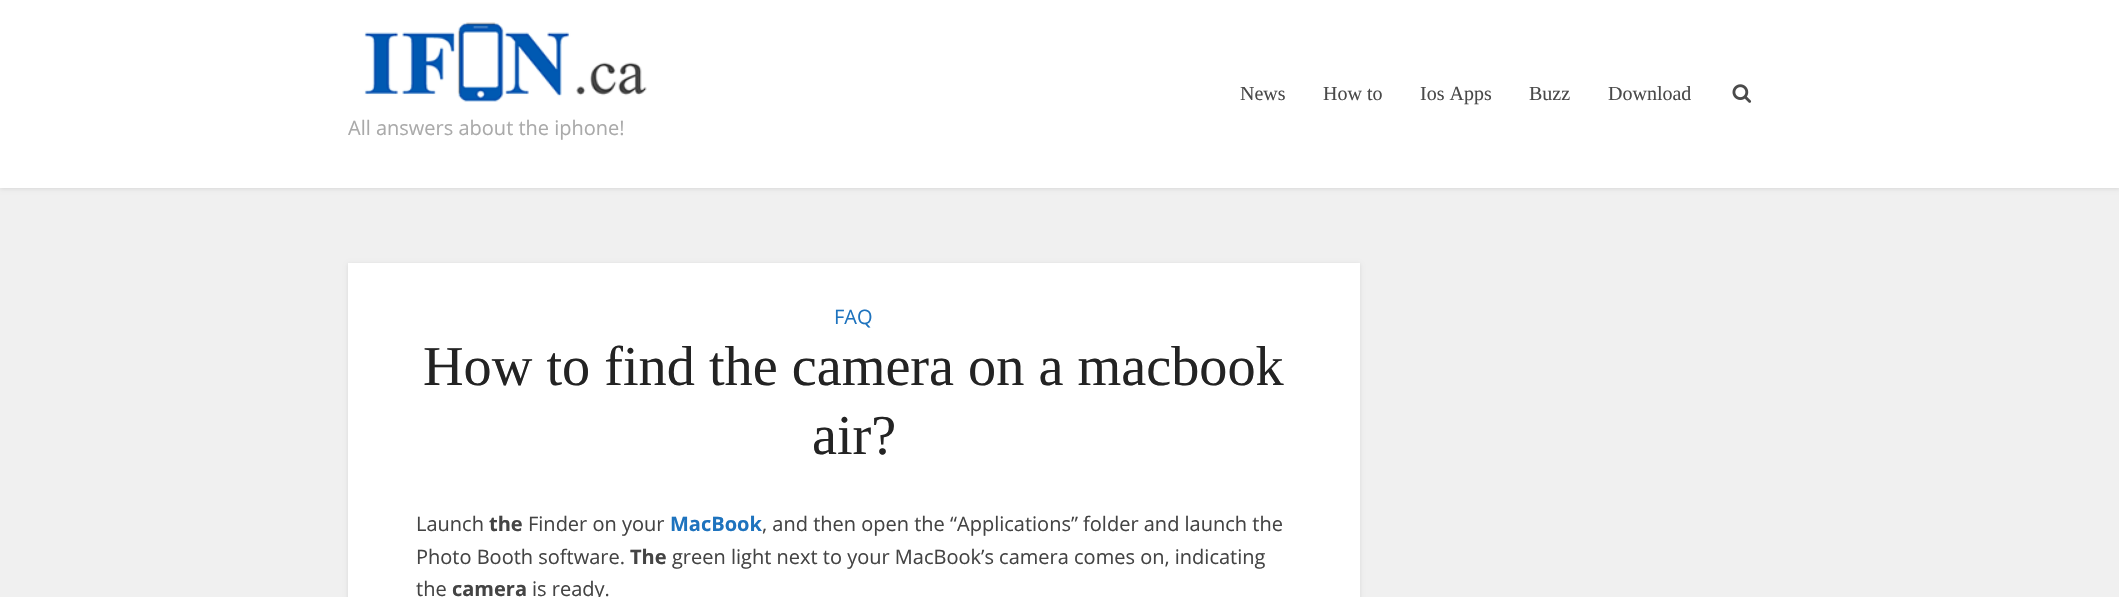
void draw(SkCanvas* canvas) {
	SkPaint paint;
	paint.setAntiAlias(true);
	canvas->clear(0xfff0f0f0);
	paint.setColor(0x1a000000);
	paint.setMaskFilter(SkMaskFilter::MakeBlur(kNormal_SkBlurStyle, 2));
	canvas->drawRect(SkRect::MakeXYWH(0, 1, 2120, 188), paint);
	paint.setMaskFilter(nullptr);
	paint.setColor(0xffffffff);
	canvas->drawRect(SkRect::MakeXYWH(0, 0, 2119, 188), paint);
	SkFont f1(fontMgr->matchFamilyStyle("Liberation Serif", SkFontStyle::Normal()), 20);
	f1.setSubpixel(true);
	paint.setColor(0xff4a4a4a);
	canvas->drawString("News", 1240, 100, f1, paint);
	canvas->drawString("How to", 1323, 100, f1, paint);
	canvas->drawString("Ios Apps", 1420, 100, f1, paint);
	canvas->drawString("Buzz", 1529, 100, f1, paint);
	canvas->drawString("Download", 1608, 100, f1, paint);
	canvas->drawImageRect(SkImages::DeferredFromEncodedData(SkData::MakeFromFileName("img1.png")), SkRect::MakeXYWH(1732, 84, 20, 19), SkSamplingOptions());
	canvas->drawImageRect(SkImages::DeferredFromEncodedData(SkData::MakeFromFileName("img2.png")), SkRect::MakeXYWH(364, 22, 283, 80), SkSamplingOptions());
	SkFont f2(fontMgr->matchFamilyStyle("Open Sans", SkFontStyle::Normal()), 20);
	f2.setSubpixel(true);
	paint.setColor(0xffaaaaaa);
	canvas->drawString("All answers about the iphone!", 348, 135, f2, paint);
	paint.setColor(0x1a000000);
	paint.setMaskFilter(SkMaskFilter::MakeBlur(kNormal_SkBlurStyle, 2));
	canvas->drawRect(SkRect::MakeXYWH(348, 264, 1012, 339), paint);
	paint.setMaskFilter(nullptr);
	paint.setColor(0xffffffff);
	canvas->drawRect(SkRect::MakeXYWH(348, 263, 1012, 334), paint);
	paint.setColor(0xff1e73be);
	canvas->drawString("FAQ", 834, 324, f2, paint);
	SkFont f3(fontMgr->matchFamilyStyle("Liberation Serif", SkFontStyle::Normal()), 56.25);
	f3.setSubpixel(true);
	paint.setColor(0xff232323);
	canvas->drawString("How to find the camera on a macbook", 423, 385, f3, paint);
	canvas->drawString("air?", 812, 454, f3, paint);
	paint.setColor(0xff444444);
	canvas->drawString("Launch", 416, 531, f2, paint);
	SkFont f4(fontMgr->matchFamilyStyle("Open Sans", SkFontStyle::Bold()), 20);
	f4.setSubpixel(true);
	canvas->drawString("the", 489, 531, f4, paint);
	canvas->drawString("Finder on your", 528, 531, f2, paint);
	paint.setColor(0xff1e73be);
	canvas->drawString("MacBook", 670, 531, f4, paint);
	paint.setColor(0xff444444);
	canvas->drawString(", and then open the “Applications” folder and launch the", 762, 531, f2, paint);
	canvas->drawString("Photo Booth software.", 416, 564, f2, paint);
	canvas->drawString("The", 630, 564, f4, paint);
	canvas->drawString("green light next to your MacBook’s camera comes on, indicating", 672, 564, f2, paint);
	canvas->drawString("the", 416, 596, f2, paint);
	canvas->drawString("camera", 452, 596, f4, paint);
	canvas->drawString("is ready.", 532, 596, f2, paint);
}
